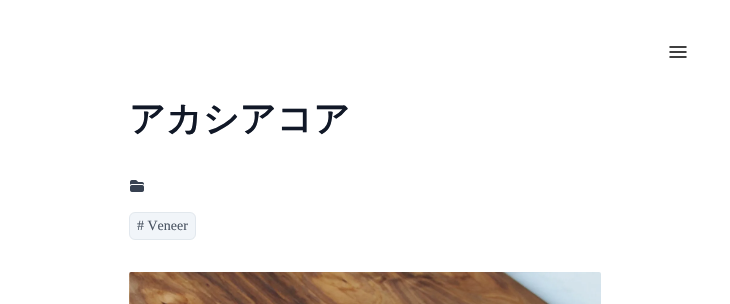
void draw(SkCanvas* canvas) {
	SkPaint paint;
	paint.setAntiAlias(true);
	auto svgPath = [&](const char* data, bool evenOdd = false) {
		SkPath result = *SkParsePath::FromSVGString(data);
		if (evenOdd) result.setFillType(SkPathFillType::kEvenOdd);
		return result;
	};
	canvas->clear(0xffffffff);
	paint.setStroke(true);
	paint.setStrokeWidth(1.5);
	paint.setStrokeCap(SkPaint::kRound_Cap);
	paint.setStrokeJoin(SkPaint::kRound_Join);
	paint.setColor(0xff000000);
	canvas->drawPath(svgPath("M670 47H686M670 52H686M670 57H686"), paint);
	SkFont f1(fontMgr->matchFamilyStyle("WenQuanYi Zen Hei", SkFontStyle::Bold()), 36);
	f1.setSubpixel(true);
	paint.setStroke(false);
	paint.setColor(0xff111827);
	canvas->drawString("アカシアコア", 129, 131, f1, paint);
	canvas->drawImageRect(SkImages::DeferredFromEncodedData(SkData::MakeFromFileName("img1.png")), SkRect::MakeXYWH(130, 180, 14, 12), SkSamplingOptions());
	paint.setColor(0xfff1f5f9);
	canvas->drawRoundRect(SkRect::MakeXYWH(129, 212, 67, 28), 6, 6, paint);
	paint.setStroke(true);
	paint.setStrokeWidth(1);
	paint.setStrokeCap(SkPaint::kButt_Cap);
	paint.setStrokeJoin(SkPaint::kMiter_Join);
	paint.setColor(0x1a64748b);
	canvas->drawRoundRect(SkRect::MakeXYWH(129.5, 212.5, 66, 27), 5.5, 5.5, paint);
	SkFont f2(fontMgr->matchFamilyStyle("Liberation Serif", SkFontStyle::Normal()), 14);
	f2.setSubpixel(true);
	paint.setStroke(false);
	paint.setColor(0xff4b5563);
	canvas->drawString("# Veneer", 137, 230, f2, paint);
	canvas->drawImageRect(SkImages::DeferredFromEncodedData(SkData::MakeFromFileName("img2.png")), SkRect::MakeXYWH(129, 272, 472, 32), SkSamplingOptions());
}
